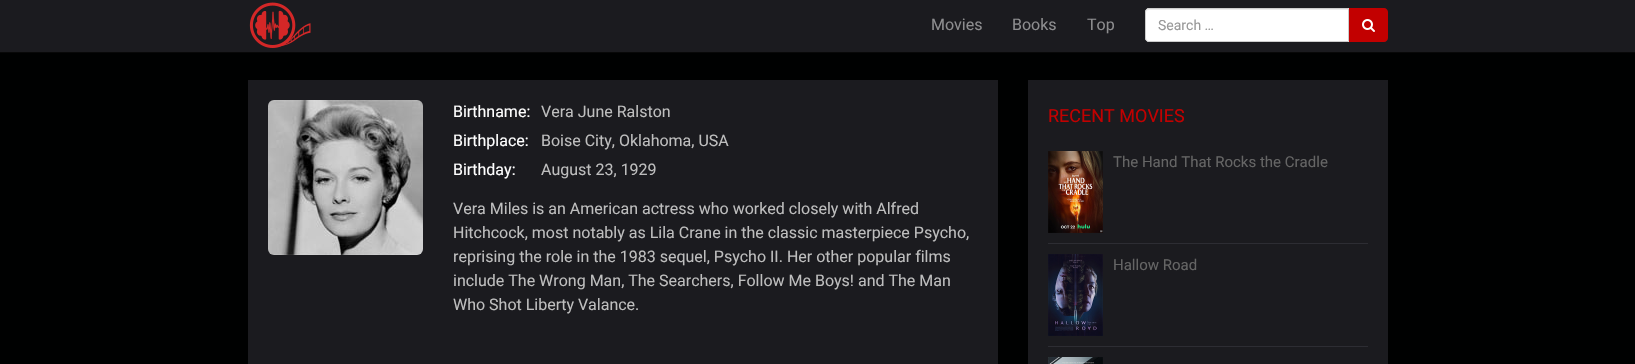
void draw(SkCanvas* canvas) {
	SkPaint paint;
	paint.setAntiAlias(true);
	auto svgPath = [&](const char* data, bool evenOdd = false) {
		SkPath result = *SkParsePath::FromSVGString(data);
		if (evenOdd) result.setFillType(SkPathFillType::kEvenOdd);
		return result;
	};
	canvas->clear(0xff000101);
	paint.setColor(0xff1b1b1f);
	canvas->drawRect(SkRect::MakeXYWH(0, 0, 1635, 52), paint);
	paint.setColor(0xff080808);
	canvas->drawRect(SkRect::MakeXYWH(0, 52, 1635, 1), paint);
	canvas->drawImageRect(SkImages::DeferredFromEncodedData(SkData::MakeFromFileName("img1.png")), SkRect::MakeXYWH(249, 2, 62, 46), SkSamplingOptions());
	SkFont f1(fontMgr->matchFamilyStyle("Roboto", SkFontStyle::Normal()), 16);
	f1.setSubpixel(true);
	paint.setColor(0xff8d8d8f);
	canvas->drawString("Movies", 931, 30, f1, paint);
	canvas->drawString("Books", 1012, 30, f1, paint);
	canvas->drawString("Top", 1087, 30, f1, paint);
	paint.setColor(0xffffffff);
	canvas->drawPath(svgPath("M1149 8H1349V42H1149C1147 42 1145 40 1145 38V12C1145 10 1147 8 1149 8Z"), paint);
	paint.setColor(0xffececec);
	canvas->drawPath(svgPath("M1149 10H1348V9H1149C1147 9 1146 11 1146 13C1146 11 1147 10 1149 10Z"), paint);
	paint.setStroke(true);
	paint.setStrokeWidth(1);
	paint.setColor(0xffcccccc);
	canvas->drawPath(svgPath("M1149 8.5H1348.5V41.5H1149C1147 41.5 1145.5 40 1145.5 38V12C1145.5 10 1147 8.5 1149 8.5Z"), paint);
	SkFont f2(fontMgr->matchFamilyStyle("Roboto", SkFontStyle::Normal()), 14);
	f2.setSubpixel(true);
	paint.setStroke(false);
	paint.setColor(0xff999999);
	canvas->drawString("Search …", 1158, 30, f2, paint);
	paint.setColor(0xffc20000);
	canvas->drawPath(svgPath("M1349 8H1384C1386 8 1388 10 1388 12V38C1388 40 1386 42 1384 42H1349Z"), paint);
	canvas->drawImageRect(SkImages::DeferredFromEncodedData(SkData::MakeFromFileName("img2.png")), SkRect::MakeXYWH(1362, 19, 13, 13), SkSamplingOptions());
	paint.setColor(0xff1b1b1f);
	canvas->drawRect(SkRect::MakeXYWH(248, 80, 750, 284), paint);
	canvas->drawImageRect(SkImages::DeferredFromEncodedData(SkData::MakeFromFileName("img3.png")), SkRect::MakeXYWH(268, 100, 155, 155), SkSamplingOptions());
	paint.setColor(0xffffffff);
	canvas->drawString("Birthname:", 453, 117, f1, paint);
	paint.setColor(0xffbebebe);
	canvas->drawString("Vera June Ralston", 541, 117, f1, paint);
	paint.setColor(0xffffffff);
	canvas->drawString("Birthplace:", 453, 146, f1, paint);
	paint.setColor(0xffbebebe);
	canvas->drawString("Boise City, Oklahoma, USA", 541, 146, f1, paint);
	paint.setColor(0xffffffff);
	canvas->drawString("Birthday:", 453, 175, f1, paint);
	paint.setColor(0xffbebebe);
	canvas->drawString("August 23, 1929", 541, 175, f1, paint);
	canvas->drawString("Vera Miles is an American actress who worked closely with Alfred", 453, 214, f1, paint);
	canvas->drawString("Hitchcock, most notably as Lila Crane in the classic masterpiece Psycho,", 453, 238, f1, paint);
	canvas->drawString("reprising the role in the 1983 sequel, Psycho II. Her other popular films", 453, 262, f1, paint);
	canvas->drawString("include The Wrong Man, The Searchers, Follow Me Boys! and The Man", 453, 286, f1, paint);
	canvas->drawString("Who Shot Liberty Valance.", 453, 310, f1, paint);
	paint.setColor(0xff1b1b1f);
	canvas->drawRect(SkRect::MakeXYWH(1028, 80, 360, 284), paint);
	SkFont f3(fontMgr->matchFamilyStyle("Roboto", SkFontStyle::Normal()), 18);
	f3.setSubpixel(true);
	paint.setColor(0xffc20000);
	canvas->drawString("RECENT MOVIES", 1048, 122, f3, paint);
	paint.setColor(0xff2d2d33);
	canvas->drawRect(SkRect::MakeXYWH(1048, 243, 320, 1), paint);
	canvas->drawImageRect(SkImages::DeferredFromEncodedData(SkData::MakeFromFileName("img4.png")), SkRect::MakeXYWH(1048, 151, 55, 82), SkSamplingOptions());
	SkFont f4(fontMgr->matchFamilyStyle("Roboto", SkFontStyle::Normal()), 15);
	f4.setSubpixel(true);
	paint.setColor(0xff656565);
	canvas->drawString("The Hand That Rocks the Cradle", 1113, 167, f4, paint);
	paint.setColor(0xff2d2d33);
	canvas->drawRect(SkRect::MakeXYWH(1048, 346, 320, 1), paint);
	canvas->drawImageRect(SkImages::DeferredFromEncodedData(SkData::MakeFromFileName("img5.png")), SkRect::MakeXYWH(1048, 254, 55, 82), SkSamplingOptions());
	paint.setColor(0xff656565);
	canvas->drawString("Hallow Road", 1113, 270, f4, paint);
	canvas->drawImageRect(SkImages::DeferredFromEncodedData(SkData::MakeFromFileName("img6.png")), SkRect::MakeXYWH(1048, 357, 55, 7), SkSamplingOptions());
}
